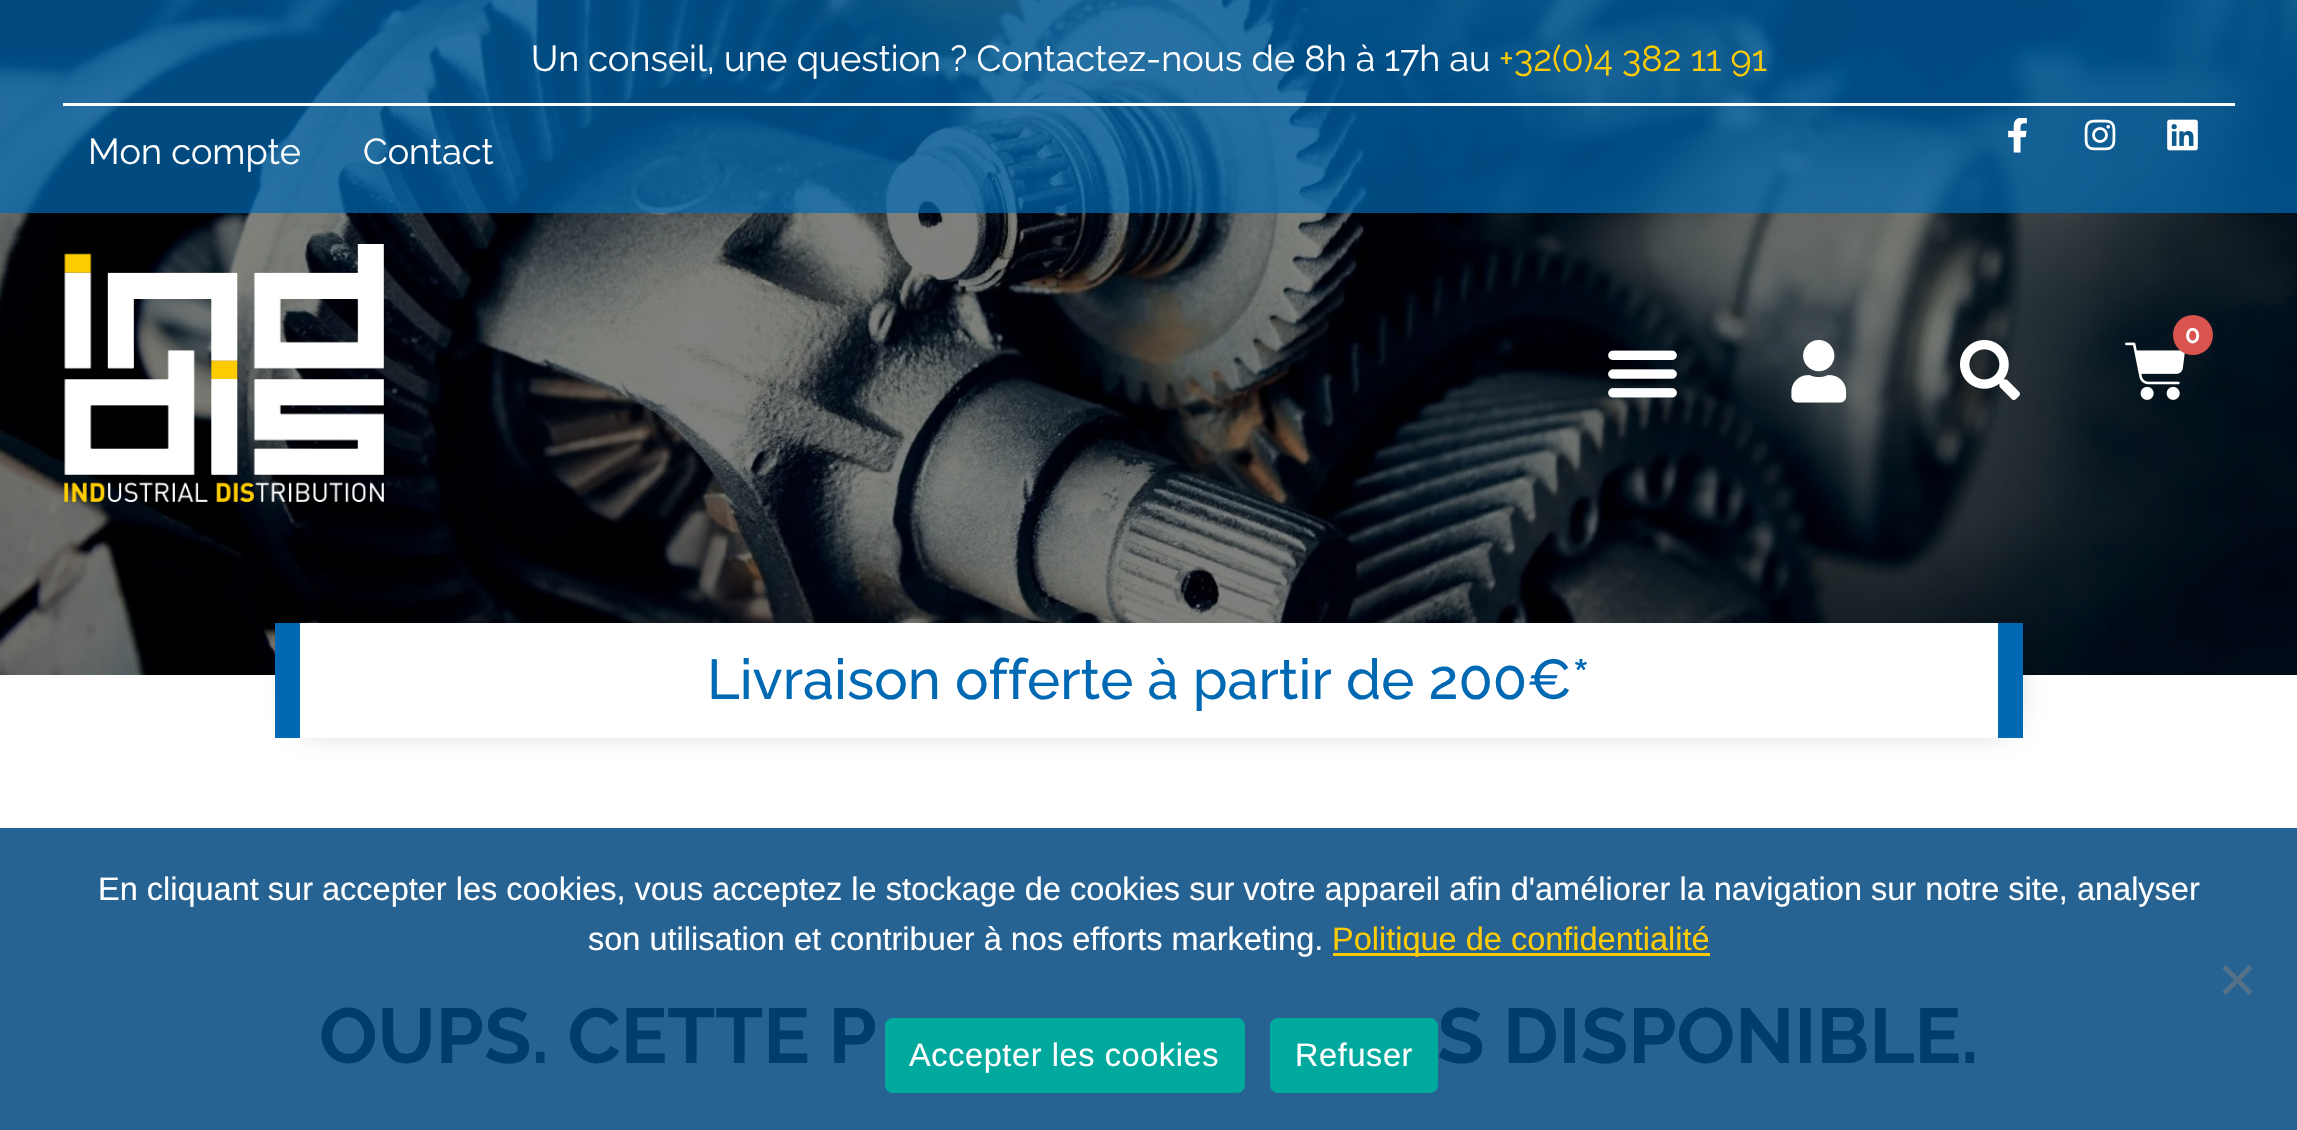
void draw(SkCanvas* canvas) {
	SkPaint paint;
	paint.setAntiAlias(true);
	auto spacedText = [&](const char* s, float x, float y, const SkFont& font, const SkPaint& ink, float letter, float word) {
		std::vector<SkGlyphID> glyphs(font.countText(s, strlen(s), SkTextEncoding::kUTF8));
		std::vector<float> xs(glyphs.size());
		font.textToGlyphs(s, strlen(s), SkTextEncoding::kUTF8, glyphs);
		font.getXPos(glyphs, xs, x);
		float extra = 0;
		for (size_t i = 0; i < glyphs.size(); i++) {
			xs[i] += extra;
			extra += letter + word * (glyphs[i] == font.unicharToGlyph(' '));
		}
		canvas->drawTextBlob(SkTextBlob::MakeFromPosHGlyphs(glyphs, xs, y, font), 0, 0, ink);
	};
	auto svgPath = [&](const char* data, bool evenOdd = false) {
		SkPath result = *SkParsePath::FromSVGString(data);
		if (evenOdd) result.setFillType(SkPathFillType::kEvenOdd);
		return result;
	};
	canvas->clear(0xffffffff);
	canvas->drawImageRect(SkImages::DeferredFromEncodedData(SkData::MakeFromFileName("img1.png")), SkRect::MakeXYWH(0, 0, 2297, 675), SkSamplingOptions());
	paint.setColor(0xb30069b4);
	canvas->drawRect(SkRect::MakeXYWH(0, 0, 2297, 213), paint);
	paint.setColor(0xffffffff);
	canvas->drawRect(SkRect::MakeXYWH(63, 103, 2172, 3), paint);
	SkFont f1(fontMgr->matchFamilyStyle("Raleway", SkFontStyle::Normal()), 36);
	f1.setSubpixel(true);
	canvas->drawString("Un conseil, une question ? Contactez-nous de 8h à 17h au", 531, 71, f1, paint);
	paint.setColor(0xfffdcb05);
	canvas->drawString("+32(0)4 382 11 91", 1499, 71, f1, paint);
	paint.setColor(0xffffffff);
	canvas->drawString("Mon compte", 88, 164, f1, paint);
	canvas->drawString("Contact", 363, 164, f1, paint);
	canvas->drawImageRect(SkImages::DeferredFromEncodedData(SkData::MakeFromFileName("img2.png")), SkRect::MakeXYWH(2008, 118, 19, 35), SkSamplingOptions());
	canvas->drawImageRect(SkImages::DeferredFromEncodedData(SkData::MakeFromFileName("img3.png")), SkRect::MakeXYWH(2084, 119, 32, 32), SkSamplingOptions());
	canvas->drawImageRect(SkImages::DeferredFromEncodedData(SkData::MakeFromFileName("img4.png")), SkRect::MakeXYWH(2167, 119, 31, 32), SkSamplingOptions());
	canvas->drawImageRect(SkImages::DeferredFromEncodedData(SkData::MakeFromFileName("img5.png")), SkRect::MakeXYWH(64, 244, 320, 258), SkSamplingOptions());
	canvas->drawImageRect(SkImages::DeferredFromEncodedData(SkData::MakeFromFileName("img6.png")), SkRect::MakeXYWH(2125, 342, 60, 58), SkSamplingOptions());
	paint.setColor(0xffd9534f);
	canvas->drawCircle(2193, 335, 20, paint);
	SkFont f2(fontMgr->matchFamilyStyle("Raleway", SkFontStyle(600, SkFontStyle::kNormal_Width, SkFontStyle::kUpright_Slant)), 25);
	f2.setSubpixel(true);
	paint.setColor(0xffffffff);
	canvas->drawString("0", 2185, 343, f2, paint);
	canvas->drawImageRect(SkImages::DeferredFromEncodedData(SkData::MakeFromFileName("img7.png")), SkRect::MakeXYWH(1791, 340, 56, 63), SkSamplingOptions());
	canvas->drawImageRect(SkImages::DeferredFromEncodedData(SkData::MakeFromFileName("img8.png")), SkRect::MakeXYWH(1960, 340, 60, 60), SkSamplingOptions());
	canvas->drawImageRect(SkImages::DeferredFromEncodedData(SkData::MakeFromFileName("img9.png")), SkRect::MakeXYWH(1608, 350, 69, 48), SkSamplingOptions());
	paint.setColor(0x80000000);
	paint.setMaskFilter(SkMaskFilter::MakeBlur(kNormal_SkBlurStyle, 17.5));
	canvas->drawRect(SkRect::MakeXYWH(308, 655, 1697, 65), paint);
	paint.setMaskFilter(nullptr);
	paint.setColor(0xffffffff);
	canvas->drawRect(SkRect::MakeXYWH(300, 623, 1698, 115), paint);
	paint.setColor(0xff0069b4);
	canvas->drawRect(SkRect::MakeXYWH(1998, 623, 25, 115), paint);
	canvas->drawRect(SkRect::MakeXYWH(275, 623, 25, 115), paint);
	SkFont f3(fontMgr->matchFamilyStyle("Raleway", SkFontStyle(500, SkFontStyle::kNormal_Width, SkFontStyle::kUpright_Slant)), 56);
	f3.setSubpixel(true);
	canvas->drawString("Livraison offerte à partir de 200€*", 707, 699, f3, paint);
	paint.setColor(0xff266392);
	canvas->drawRect(SkRect::MakeXYWH(0, 828, 2297, 302), paint);
	SkFont f4(fontMgr->matchFamilyStyle("Liberation Sans", SkFontStyle::Normal()), 32.5);
	f4.setSubpixel(true);
	paint.setColor(0xffffffff);
	canvas->drawString("En cliquant sur accepter les cookies, vous acceptez le stockage de cookies sur votre appareil afin d'améliorer la navigation sur notre site, analyser", 98, 900, f4, paint);
	canvas->drawString("son utilisation et contribuer à nos efforts marketing.", 588, 950, f4, paint);
	paint.setColor(0xfffdcb05);
	canvas->drawRect(SkRect::MakeXYWH(1333, 953, 377, 3), paint);
	canvas->drawString("Politique de confidentialité", 1332, 950, f4, paint);
	paint.setColor(0xff537289);
	canvas->drawPath(svgPath("M2249 965L2252.5 968.5L2226 995L2222.5 991.5Z"), paint);
	canvas->drawPath(svgPath("M2222.5 968.5L2226 965L2252.5 991.5L2249 995Z"), paint);
	paint.setColor(0xff00a99d);
	canvas->drawRoundRect(SkRect::MakeXYWH(885, 1018, 360, 75), 8, 8, paint);
	paint.setColor(0xffffffff);
	spacedText("Accepter les cookies", 909, 1066, f4, paint, 0.6, 0);
	paint.setColor(0xff00a99d);
	canvas->drawRoundRect(SkRect::MakeXYWH(1270, 1018, 168, 75), 8, 8, paint);
	paint.setColor(0xffffffff);
	spacedText("Refuser", 1295, 1066, f4, paint, 0.6, 0);
	SkFont f5(fontMgr->matchFamilyStyle("Raleway", SkFontStyle::Bold()), 77.5);
	f5.setSubpixel(true);
	paint.setColor(0xff003d6c);
	canvas->drawString("OUPS. CETTE P", 319, 1063, f5, paint);
	canvas->drawString("S DISPONIBLE.", 1437, 1063, f5, paint);
}
